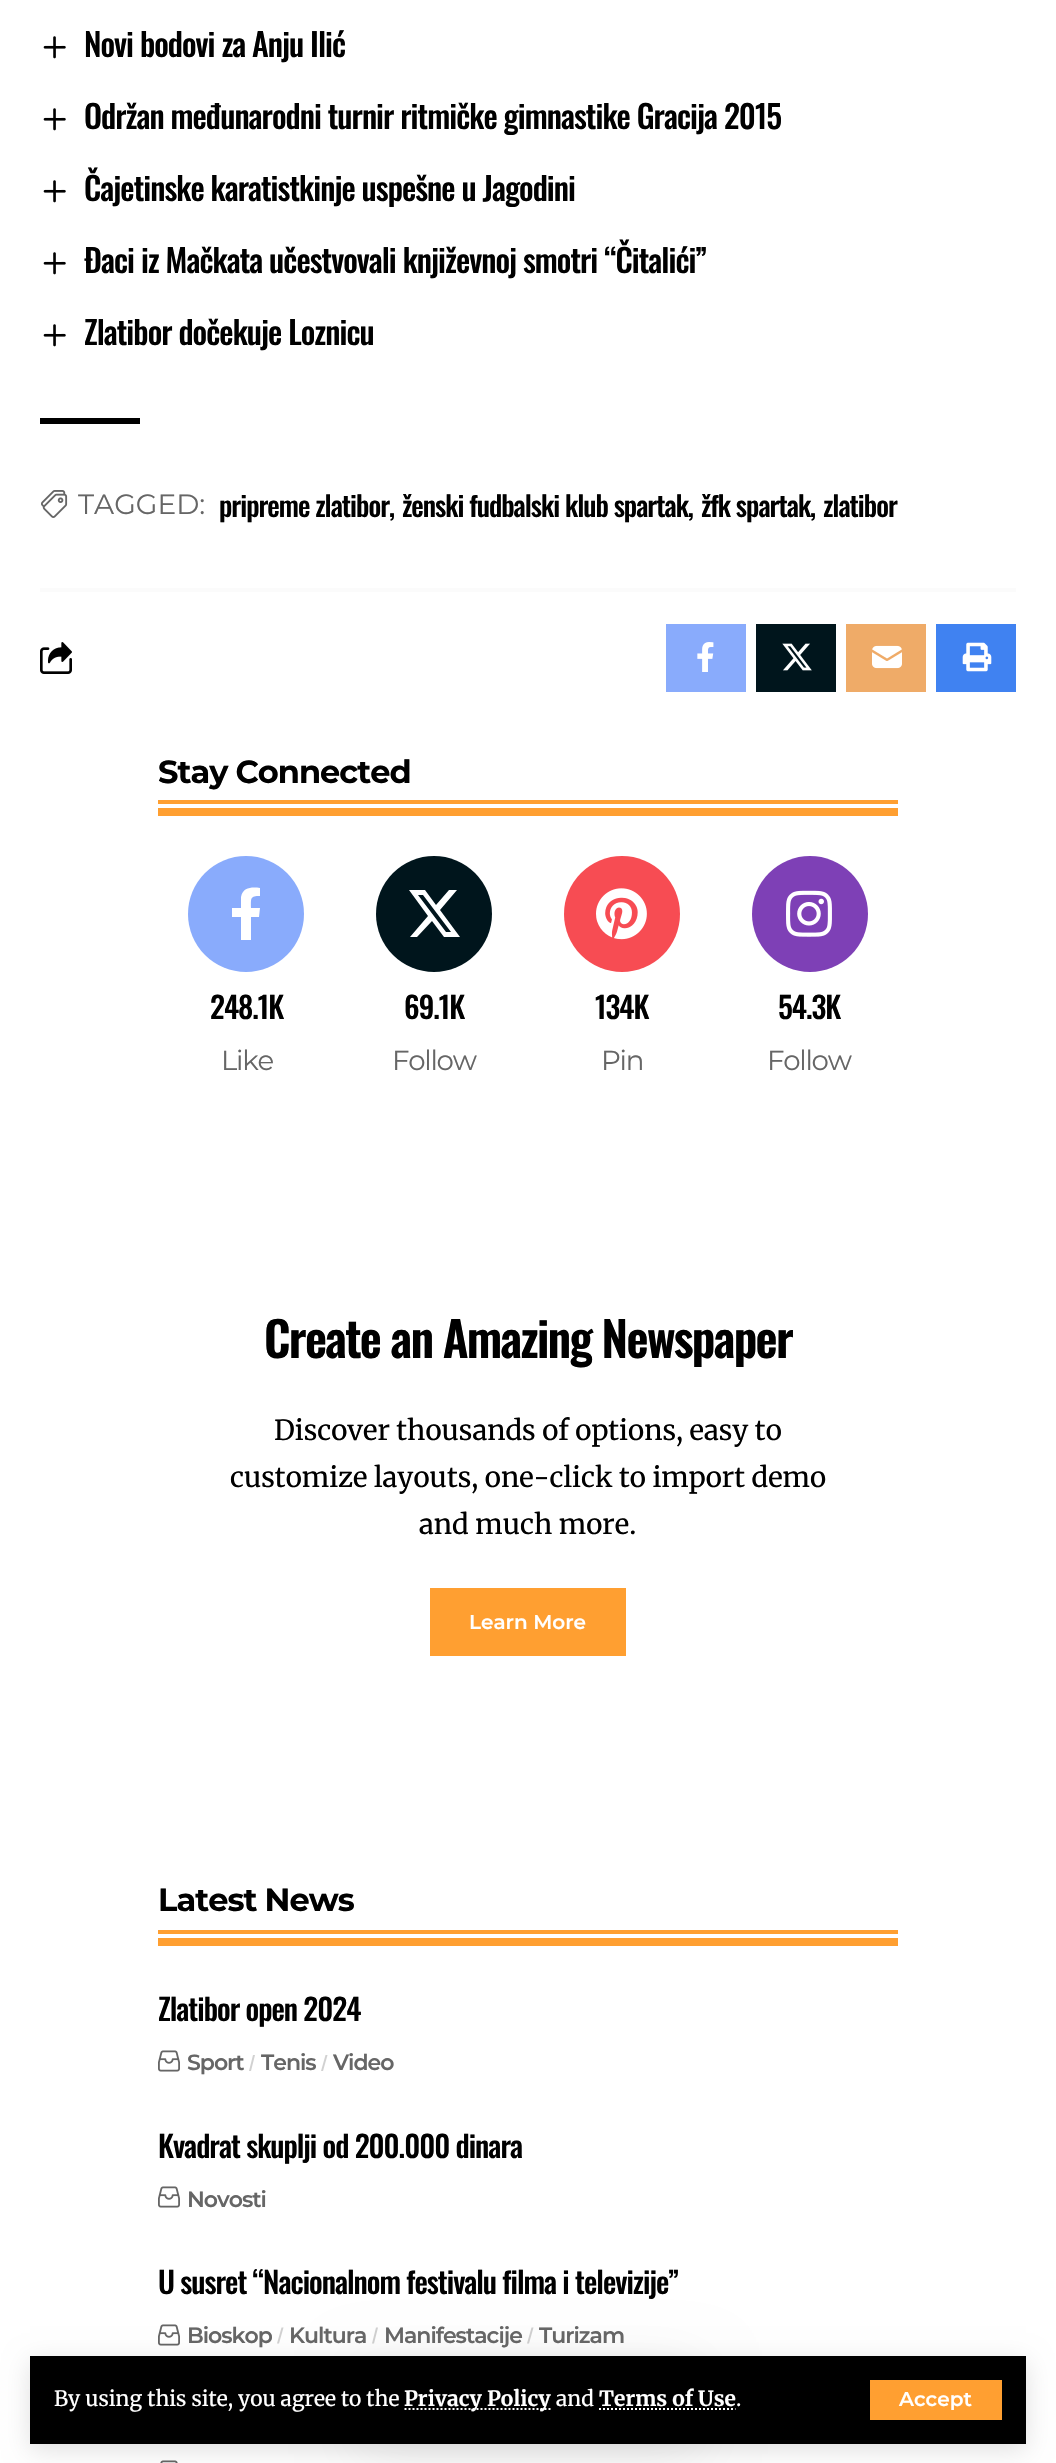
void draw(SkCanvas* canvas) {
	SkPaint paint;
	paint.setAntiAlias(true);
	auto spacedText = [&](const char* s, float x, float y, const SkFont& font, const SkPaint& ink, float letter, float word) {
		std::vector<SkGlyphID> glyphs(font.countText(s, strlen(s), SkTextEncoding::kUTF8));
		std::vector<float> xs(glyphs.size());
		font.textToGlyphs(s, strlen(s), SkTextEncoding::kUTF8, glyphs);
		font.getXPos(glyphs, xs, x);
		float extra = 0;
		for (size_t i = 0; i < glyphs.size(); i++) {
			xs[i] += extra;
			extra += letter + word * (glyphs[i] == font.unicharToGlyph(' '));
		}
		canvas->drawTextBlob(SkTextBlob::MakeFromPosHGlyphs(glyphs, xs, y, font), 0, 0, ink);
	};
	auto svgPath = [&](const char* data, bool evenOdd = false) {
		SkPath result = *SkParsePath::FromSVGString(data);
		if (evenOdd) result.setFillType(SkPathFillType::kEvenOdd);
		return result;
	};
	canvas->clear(0xffffffff);
	canvas->drawImageRect(SkImages::DeferredFromEncodedData(SkData::MakeFromFileName("img1.png")), SkRect::MakeXYWH(43, 36, 23, 23), SkSamplingOptions());
	SkFont f1(fontMgr->matchFamilyStyle("Oswald", SkFontStyle(500, SkFontStyle::kNormal_Width, SkFontStyle::kUpright_Slant)), 32);
	f1.setSubpixel(true);
	paint.setColor(0xff000000);
	spacedText("Novi bodovi za Anju Ilić", 84, 57, f1, paint, -0.95, 0);
	canvas->drawImageRect(SkImages::DeferredFromEncodedData(SkData::MakeFromFileName("img1.png")), SkRect::MakeXYWH(43, 108, 23, 23), SkSamplingOptions());
	spacedText("Održan međunarodni turnir ritmičke gimnastike Gracija 2015", 84, 129, f1, paint, -0.95, 0);
	canvas->drawImageRect(SkImages::DeferredFromEncodedData(SkData::MakeFromFileName("img1.png")), SkRect::MakeXYWH(43, 180, 23, 23), SkSamplingOptions());
	spacedText("Čajetinske karatistkinje uspešne u Jagodini", 84, 201, f1, paint, -0.95, 0);
	canvas->drawImageRect(SkImages::DeferredFromEncodedData(SkData::MakeFromFileName("img1.png")), SkRect::MakeXYWH(43, 252, 23, 23), SkSamplingOptions());
	spacedText("Đaci iz Mačkata učestvovali književnoj smotri “Čitalići”", 84, 273, f1, paint, -0.95, 0);
	canvas->drawImageRect(SkImages::DeferredFromEncodedData(SkData::MakeFromFileName("img1.png")), SkRect::MakeXYWH(43, 324, 23, 23), SkSamplingOptions());
	spacedText("Zlatibor dočekuje Loznicu", 84, 345, f1, paint, -0.95, 0);
	canvas->drawRect(SkRect::MakeXYWH(40, 418, 100, 6), paint);
	canvas->drawImageRect(SkImages::DeferredFromEncodedData(SkData::MakeFromFileName("img2.png")), SkRect::MakeXYWH(41, 490, 27, 28), SkSamplingOptions());
	SkFont f2(fontMgr->matchFamilyStyle("Montserrat", SkFontStyle::Normal()), 28);
	f2.setSubpixel(true);
	paint.setColor(0xff666666);
	canvas->drawString("TAGGED:", 78, 514, f2, paint);
	SkFont f3(fontMgr->matchFamilyStyle("Oswald", SkFontStyle(500, SkFontStyle::kNormal_Width, SkFontStyle::kUpright_Slant)), 28);
	f3.setSubpixel(true);
	paint.setColor(0xff000000);
	spacedText("pripreme zlatibor,", 219, 517, f3, paint, -1, 0);
	spacedText("ženski fudbalski klub spartak,", 402, 517, f3, paint, -1, 0);
	spacedText("žfk spartak,", 701, 517, f3, paint, -1, 0);
	spacedText("zlatibor", 823, 517, f3, paint, -1, 0);
	paint.setColor(0xffd1d1d1);
	canvas->drawPath(svgPath("M281.5 2327.5H283.5L279 2343.5H277Z"), paint);
	canvas->drawPath(svgPath("M376 2327.5H378L374 2343.5H372Z"), paint);
	canvas->drawPath(svgPath("M531.5 2327.5H533.5L529 2343.5H527Z"), paint);
	paint.setColor(0x12000000);
	paint.setMaskFilter(SkMaskFilter::MakeBlur(kNormal_SkBlurStyle, 30));
	canvas->drawRect(SkRect::MakeXYWH(360, 2370, 336, 84), paint);
	paint.setMaskFilter(nullptr);
	paint.setColor(0xfffbfbfb);
	canvas->drawRect(SkRect::MakeXYWH(40, 588, 976, 4), paint);
	canvas->drawImageRect(SkImages::DeferredFromEncodedData(SkData::MakeFromFileName("img3.png")), SkRect::MakeXYWH(40, 642, 32, 32), SkSamplingOptions());
	paint.setColor(0xff89abfc);
	canvas->drawRect(SkRect::MakeXYWH(666, 624, 80, 68), paint);
	canvas->drawImageRect(SkImages::DeferredFromEncodedData(SkData::MakeFromFileName("img4.png")), SkRect::MakeXYWH(697, 642, 17, 30), SkSamplingOptions());
	paint.setColor(0xff00151c);
	canvas->drawRect(SkRect::MakeXYWH(756, 624, 80, 68), paint);
	canvas->drawImageRect(SkImages::DeferredFromEncodedData(SkData::MakeFromFileName("img5.png")), SkRect::MakeXYWH(782, 643, 30, 28), SkSamplingOptions());
	paint.setColor(0xffefab68);
	canvas->drawRect(SkRect::MakeXYWH(846, 624, 80, 68), paint);
	canvas->drawImageRect(SkImages::DeferredFromEncodedData(SkData::MakeFromFileName("img6.png")), SkRect::MakeXYWH(872, 645, 30, 24), SkSamplingOptions());
	paint.setColor(0xff4082f1);
	canvas->drawRect(SkRect::MakeXYWH(936, 624, 80, 68), paint);
	canvas->drawImageRect(SkImages::DeferredFromEncodedData(SkData::MakeFromFileName("img7.png")), SkRect::MakeXYWH(962, 642, 30, 30), SkSamplingOptions());
	paint.setColor(0xffff9f31);
	canvas->drawRect(SkRect::MakeXYWH(158, 808, 740, 8), paint);
	SkFont f4(fontMgr->matchFamilyStyle("Montserrat", SkFontStyle::Bold()), 32);
	f4.setSubpixel(true);
	paint.setColor(0xff000000);
	spacedText("Stay Connected", 158, 783, f4, paint, -0.95, 0);
	paint.setColor(0xffff9f31);
	canvas->drawRect(SkRect::MakeXYWH(158, 800, 740, 4), paint);
	paint.setColor(0xff89abfc);
	canvas->drawCircle(246, 914, 58, paint);
	paint.setColor(0xffffffff);
	canvas->drawPath(svgPath("M259 917L260 908H251C251 898 250 896 260 896V888C252 887 243 887 241 897V908H232V917H241V940H251V917Z"), paint);
	SkFont f5(fontMgr->matchFamilyStyle("Oswald", SkFontStyle(500, SkFontStyle::kNormal_Width, SkFontStyle::kUpright_Slant)), 30);
	f5.setSubpixel(true);
	paint.setColor(0xff000000);
	spacedText("248.1K", 210, 1019, f5, paint, -1, 0);
	SkFont f6(fontMgr->matchFamilyStyle("Montserrat", SkFontStyle::Normal()), 27.6);
	f6.setSubpixel(true);
	paint.setColor(0xff666666);
	spacedText("Like", 221, 1070, f6, paint, -1.25, 0);
	paint.setColor(0xff00151c);
	canvas->drawCircle(434, 914, 58, paint);
	paint.setColor(0xffffffff);
	canvas->drawPath(svgPath("M449 890H457L440 910L460 937H444L432 921L417 937H410L428 916L409 890H425L436 905ZM446 932H451L423 895H418Z"), paint);
	paint.setColor(0xff000000);
	spacedText("69.1K", 404, 1019, f5, paint, -1, 0);
	paint.setColor(0xff666666);
	spacedText("Follow", 392, 1070, f6, paint, -1.25, 0);
	paint.setColor(0xfff74c53);
	canvas->drawCircle(622, 914, 58, paint);
	canvas->drawImageRect(SkImages::DeferredFromEncodedData(SkData::MakeFromFileName("img8.png")), SkRect::MakeXYWH(596, 888, 51, 52), SkSamplingOptions());
	paint.setColor(0xff000000);
	spacedText("134K", 595, 1019, f5, paint, -1, 0);
	paint.setColor(0xff666666);
	spacedText("Pin", 601, 1070, f6, paint, -1.25, 0);
	paint.setColor(0xff7e40b6);
	canvas->drawCircle(810, 914, 58, paint);
	canvas->drawImageRect(SkImages::DeferredFromEncodedData(SkData::MakeFromFileName("img9.png")), SkRect::MakeXYWH(786, 890, 46, 47), SkSamplingOptions());
	paint.setColor(0xff000000);
	spacedText("54.3K", 778, 1019, f5, paint, -1, 0);
	paint.setColor(0xff666666);
	spacedText("Follow", 767, 1070, f6, paint, -1.25, 0);
	SkFont f7(fontMgr->matchFamilyStyle("Oswald", SkFontStyle(600, SkFontStyle::kNormal_Width, SkFontStyle::kUpright_Slant)), 48);
	f7.setSubpixel(true);
	paint.setColor(0xff000000);
	spacedText("Create an Amazing Newspaper", 264, 1358, f7, paint, -1.7, 0);
	SkFont f8(fontMgr->matchFamilyStyle("Merriweather", SkFontStyle::Normal()), 27.6);
	f8.setSubpixel(true);
	canvas->drawString("Discover thousands of options, easy to", 274, 1440, f8, paint);
	canvas->drawString("customize layouts, one-click to import demo", 230, 1487, f8, paint);
	canvas->drawString("and much more.", 419, 1534, f8, paint);
	paint.setColor(0xffff9f31);
	canvas->drawRect(SkRect::MakeXYWH(430, 1588, 196, 68), paint);
	SkFont f9(fontMgr->matchFamilyStyle("Montserrat", SkFontStyle(600, SkFontStyle::kNormal_Width, SkFontStyle::kUpright_Slant)), 20);
	f9.setSubpixel(true);
	paint.setColor(0xffffffff);
	canvas->drawString("Learn More", 469, 1629, f9, paint);
	paint.setColor(0xffff9f31);
	canvas->drawRect(SkRect::MakeXYWH(158, 1938, 740, 8), paint);
	paint.setColor(0xff000000);
	spacedText("Latest News", 158, 1911, f4, paint, -0.95, 0);
	paint.setColor(0xffff9f31);
	canvas->drawRect(SkRect::MakeXYWH(158, 1930, 740, 4), paint);
	paint.setColor(0xff000000);
	spacedText("Zlatibor open 2024", 158, 2021, f5, paint, -1, 0);
	canvas->drawImageRect(SkImages::DeferredFromEncodedData(SkData::MakeFromFileName("img10.png")), SkRect::MakeXYWH(158, 2050, 22, 22), SkSamplingOptions());
	SkFont f10(fontMgr->matchFamilyStyle("Montserrat", SkFontStyle(600, SkFontStyle::kNormal_Width, SkFontStyle::kUpright_Slant)), 22);
	f10.setSubpixel(true);
	paint.setColor(0xff666666);
	spacedText("Sport", 187, 2070, f10, paint, -1, 0);
	paint.setColor(0xffd1d1d1);
	canvas->drawPath(svgPath("M253 2055H255L251 2071H249Z"), paint);
	paint.setColor(0xff666666);
	spacedText("Tenis", 261, 2070, f10, paint, -1, 0);
	paint.setColor(0xffd1d1d1);
	canvas->drawPath(svgPath("M325.5 2055H327.5L323 2071H321Z"), paint);
	paint.setColor(0xff666666);
	spacedText("Video", 333, 2070, f10, paint, -1, 0);
	paint.setColor(0xff000000);
	spacedText("Kvadrat skuplji od 200.000 dinara", 158, 2158, f5, paint, -1, 0);
	canvas->drawImageRect(SkImages::DeferredFromEncodedData(SkData::MakeFromFileName("img10.png")), SkRect::MakeXYWH(158, 2186, 22, 22), SkSamplingOptions());
	paint.setColor(0xff666666);
	spacedText("Novosti", 187, 2207, f10, paint, -1, 0);
	paint.setColor(0xff000000);
	spacedText("U susret “Nacionalnom festivalu filma i televizije”", 158, 2294, f5, paint, -1, 0);
	canvas->drawImageRect(SkImages::DeferredFromEncodedData(SkData::MakeFromFileName("img10.png")), SkRect::MakeXYWH(158, 2324, 22, 22), SkSamplingOptions());
	paint.setColor(0xff666666);
	spacedText("Bioskop", 187, 2343, f10, paint, -1, 0);
	spacedText("Kultura", 289, 2343, f10, paint, -1, 0);
	spacedText("Manifestacije", 384, 2343, f10, paint, -1, 0);
	spacedText("Turizam", 539, 2343, f10, paint, -1, 0);
	canvas->drawImageRect(SkImages::DeferredFromEncodedData(SkData::MakeFromFileName("img11.png")), SkRect::MakeXYWH(160, 2460, 18, 3), SkSamplingOptions());
	paint.setColor(0x1f000000);
	paint.setMaskFilter(SkMaskFilter::MakeBlur(kNormal_SkBlurStyle, 12));
	canvas->drawRect(SkRect::MakeXYWH(30, 2362, 996, 88), paint);
	paint.setMaskFilter(nullptr);
	paint.setColor(0xff000000);
	canvas->drawRect(SkRect::MakeXYWH(30, 2356, 996, 88), paint);
	SkFont f11(fontMgr->matchFamilyStyle("Merriweather", SkFontStyle::Normal()), 21);
	f11.setSubpixel(true);
	paint.setColor(0xffffffff);
	canvas->drawString("By using this site, you agree to the", 54, 2406, f11, paint);
	paint.setStroke(true);
	paint.setStrokeWidth(2);
	paint.setPathEffect(SkDashPathEffect::Make({{2, 2}}, 0));
	canvas->drawPath(svgPath("M404.5 2409H551"), paint);
	paint.setPathEffect(nullptr);
	SkFont f12(fontMgr->matchFamilyStyle("Merriweather", SkFontStyle::Bold()), 21);
	f12.setSubpixel(true);
	paint.setStroke(false);
	canvas->drawString("Privacy Policy", 404, 2406, f12, paint);
	canvas->drawString("and", 556, 2406, f11, paint);
	canvas->drawString("Terms of Use", 599, 2406, f12, paint);
	paint.setStroke(true);
	paint.setPathEffect(SkDashPathEffect::Make({{2, 2}}, 0));
	canvas->drawPath(svgPath("M599 2409H735.5"), paint);
	paint.setPathEffect(nullptr);
	paint.setStroke(false);
	canvas->drawString(".", 736, 2406, f11, paint);
	paint.setColor(0xffff9f31);
	canvas->drawRect(SkRect::MakeXYWH(870, 2380, 132, 40), paint);
	paint.setColor(0xffffffff);
	canvas->drawString("Accept", 899, 2406, f9, paint);
}
